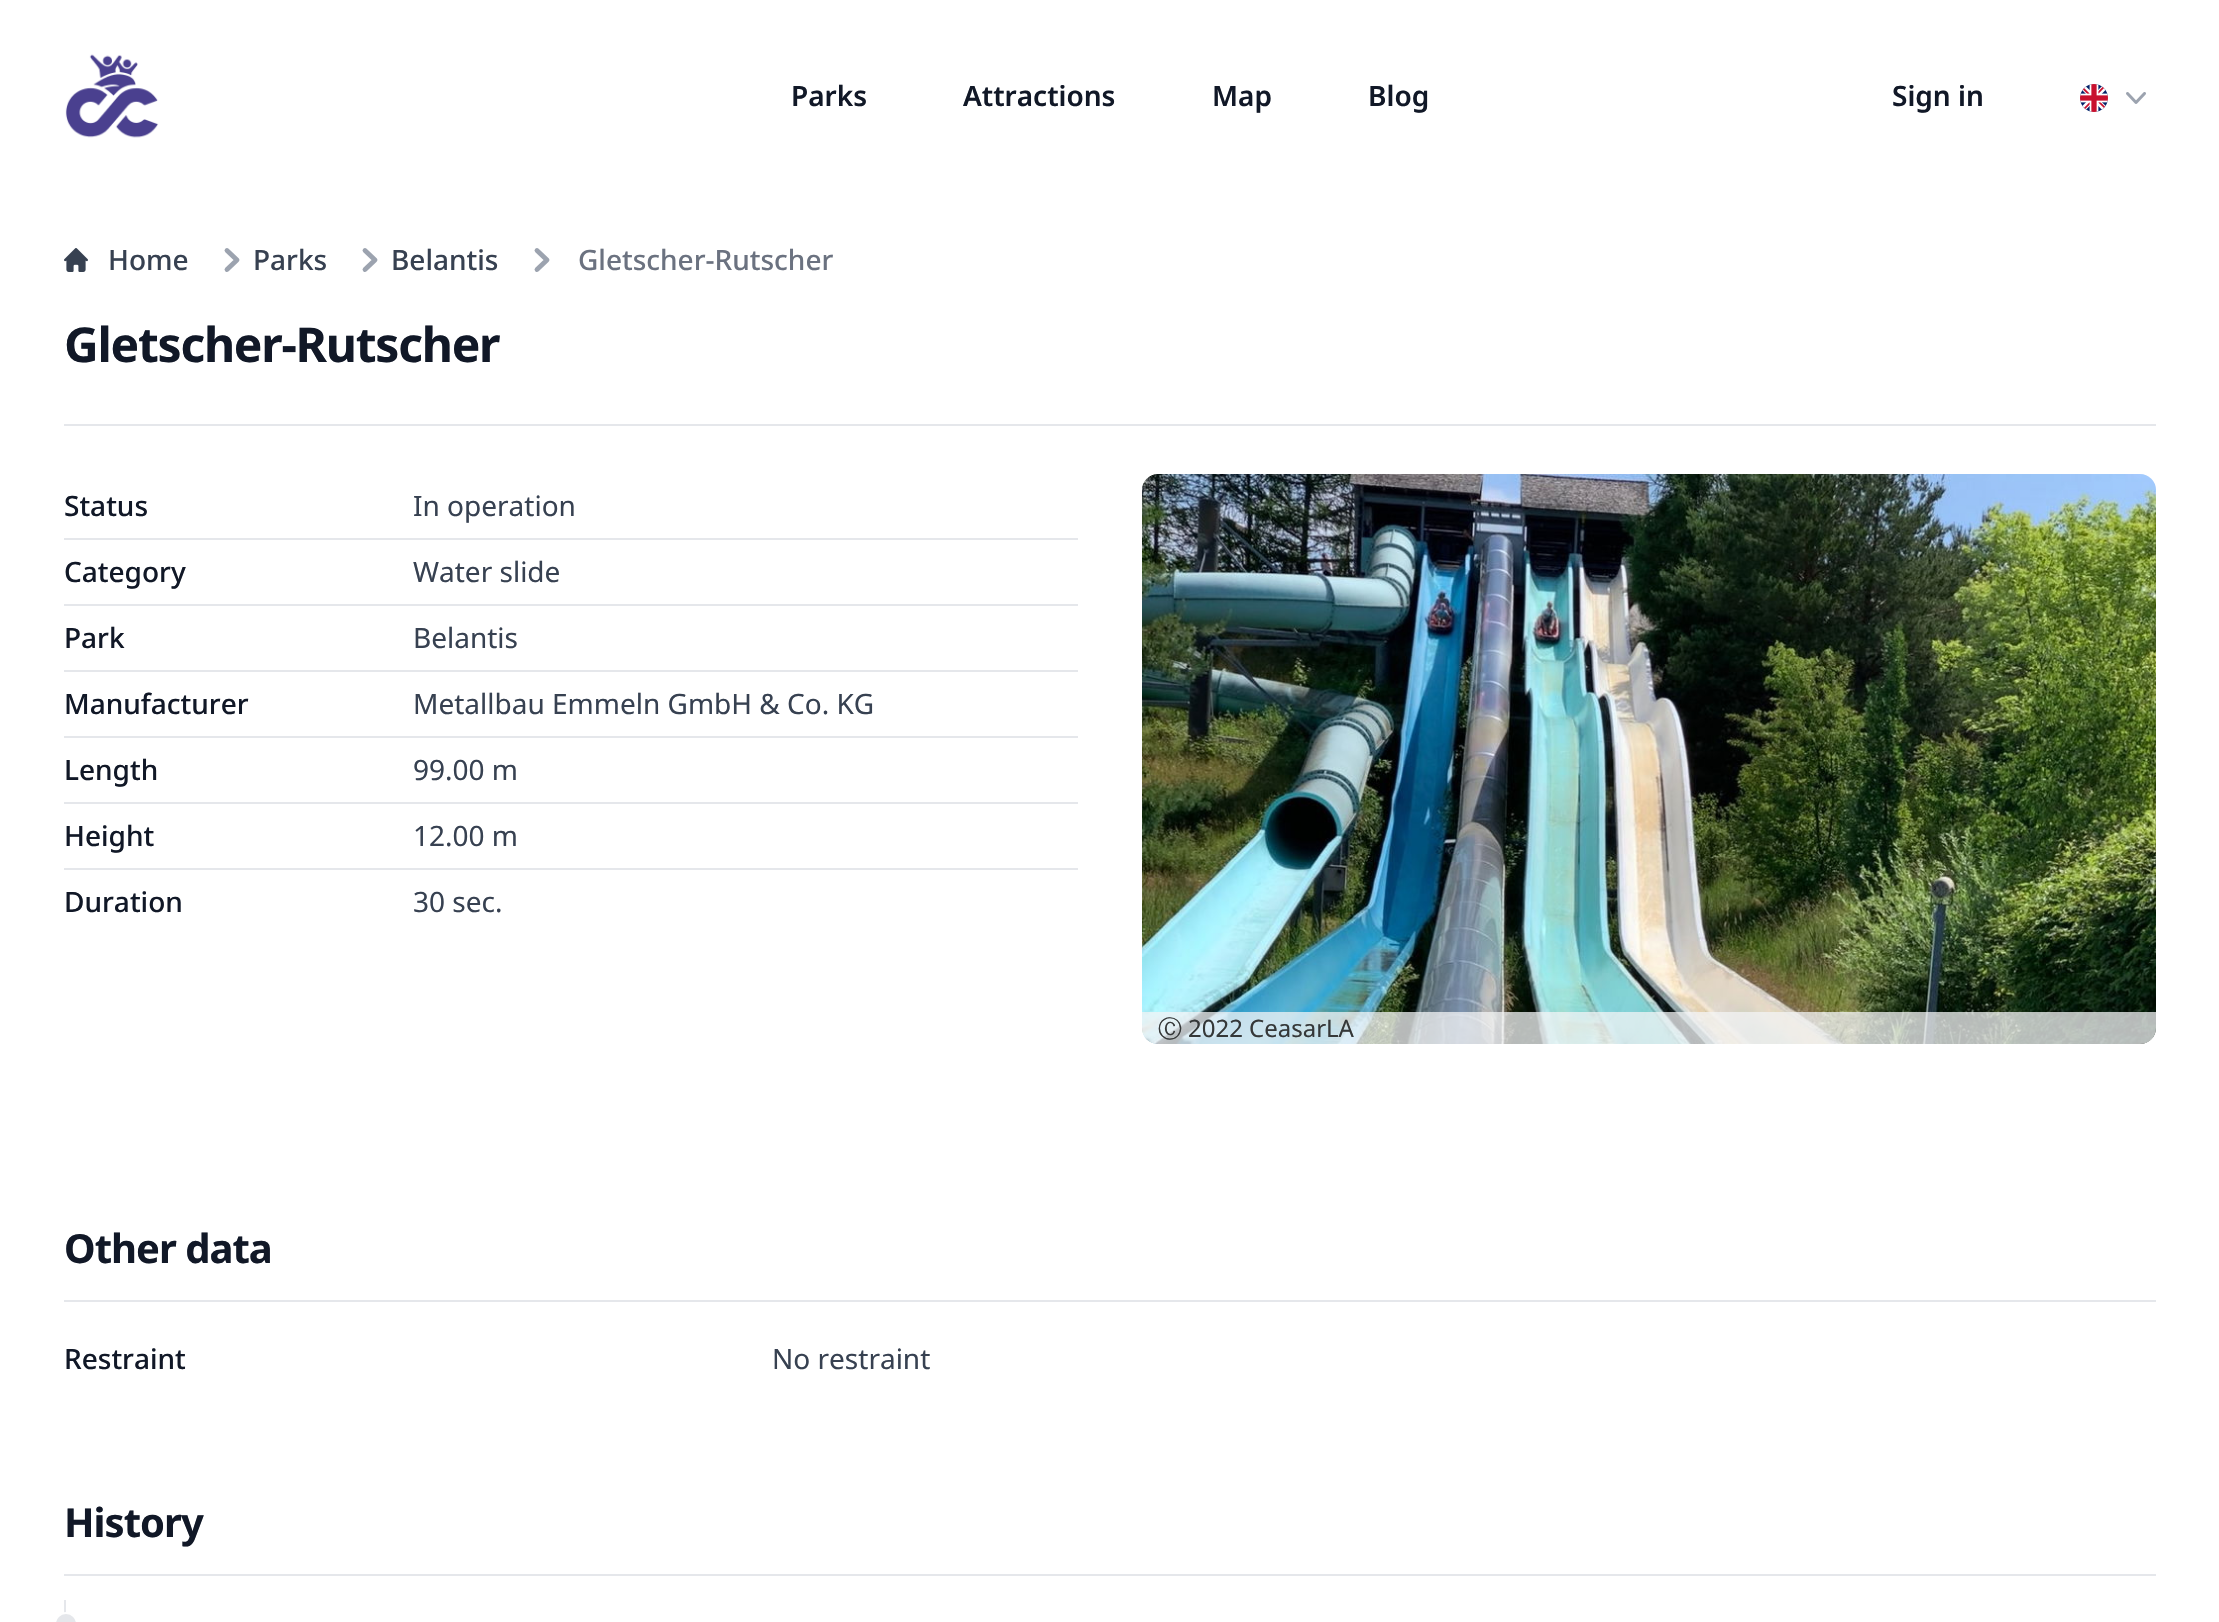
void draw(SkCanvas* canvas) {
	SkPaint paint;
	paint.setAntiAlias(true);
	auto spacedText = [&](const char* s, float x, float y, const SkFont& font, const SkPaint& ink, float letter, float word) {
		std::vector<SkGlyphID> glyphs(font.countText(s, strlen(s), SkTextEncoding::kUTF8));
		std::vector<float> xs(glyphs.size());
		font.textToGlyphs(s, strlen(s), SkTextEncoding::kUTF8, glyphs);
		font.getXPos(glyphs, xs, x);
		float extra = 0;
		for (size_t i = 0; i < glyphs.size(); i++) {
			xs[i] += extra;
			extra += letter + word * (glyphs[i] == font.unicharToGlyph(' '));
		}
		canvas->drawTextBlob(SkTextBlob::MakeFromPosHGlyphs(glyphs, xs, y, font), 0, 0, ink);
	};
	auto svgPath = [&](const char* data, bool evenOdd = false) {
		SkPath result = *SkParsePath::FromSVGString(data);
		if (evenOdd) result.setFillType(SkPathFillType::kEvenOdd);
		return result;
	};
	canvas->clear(0xffffffff);
	canvas->drawImageRect(SkImages::DeferredFromEncodedData(SkData::MakeFromFileName("img1.png")), SkRect::MakeXYWH(65, 54, 94, 84), SkSamplingOptions());
	SkFont f1(fontMgr->matchFamilyStyle("Noto Sans", SkFontStyle(600, SkFontStyle::kNormal_Width, SkFontStyle::kUpright_Slant)), 28);
	f1.setSubpixel(true);
	paint.setColor(0xff111827);
	canvas->drawString("Parks", 791, 106, f1, paint);
	canvas->drawString("Attractions", 963, 106, f1, paint);
	canvas->drawString("Map", 1212, 106, f1, paint);
	canvas->drawString("Blog", 1368, 106, f1, paint);
	canvas->drawString("Sign in", 1892, 106, f1, paint);
	canvas->drawImageRect(SkImages::DeferredFromEncodedData(SkData::MakeFromFileName("img2.png")), SkRect::MakeXYWH(2080, 84, 28, 28), SkSamplingOptions());
	canvas->drawImageRect(SkImages::DeferredFromEncodedData(SkData::MakeFromFileName("img3.png")), SkRect::MakeXYWH(2126, 92, 20, 12), SkSamplingOptions());
	canvas->drawImageRect(SkImages::DeferredFromEncodedData(SkData::MakeFromFileName("img4.png")), SkRect::MakeXYWH(64, 248, 24, 24), SkSamplingOptions());
	SkFont f2(fontMgr->matchFamilyStyle("Noto Sans", SkFontStyle(500, SkFontStyle::kNormal_Width, SkFontStyle::kUpright_Slant)), 28);
	f2.setSubpixel(true);
	paint.setColor(0xff374151);
	canvas->drawString("Home", 108, 270, f2, paint);
	paint.setStroke(true);
	paint.setStrokeWidth(4.8);
	paint.setStrokeCap(SkPaint::kRound_Cap);
	paint.setStrokeJoin(SkPaint::kRound_Join);
	paint.setColor(0xff9ca3af);
	canvas->drawPath(svgPath("M227 269.5L237 260L227 250.5"), paint);
	paint.setStroke(false);
	paint.setColor(0xff374151);
	canvas->drawString("Parks", 253, 270, f2, paint);
	paint.setStroke(true);
	paint.setColor(0xff9ca3af);
	canvas->drawPath(svgPath("M365 269.5L375 260L365 250.5"), paint);
	paint.setStroke(false);
	paint.setColor(0xff374151);
	canvas->drawString("Belantis", 391, 270, f2, paint);
	paint.setStroke(true);
	paint.setColor(0xff9ca3af);
	canvas->drawPath(svgPath("M537 269.5L547 260L537 250.5"), paint);
	paint.setStroke(false);
	paint.setColor(0xff6b7280);
	canvas->drawString("Gletscher-Rutscher", 578, 270, f2, paint);
	paint.setColor(0xffe5e7eb);
	canvas->drawRect(SkRect::MakeXYWH(64, 424, 2092, 2), paint);
	SkFont f3(fontMgr->matchFamilyStyle("Noto Sans", SkFontStyle::Bold()), 48);
	f3.setSubpixel(true);
	paint.setColor(0xff111827);
	spacedText("Gletscher-Rutscher", 64, 362, f3, paint, -1.25, 0);
	canvas->drawString("Status", 64, 516, f2, paint);
	SkFont f4(fontMgr->matchFamilyStyle("Noto Sans", SkFontStyle::Normal()), 28);
	f4.setSubpixel(true);
	paint.setColor(0xff374151);
	canvas->drawString("In operation", 413, 516, f4, paint);
	paint.setColor(0xffe5e7eb);
	canvas->drawRect(SkRect::MakeXYWH(64, 538, 1014, 2), paint);
	paint.setColor(0xff111827);
	canvas->drawString("Category", 64, 582, f2, paint);
	paint.setColor(0xff374151);
	canvas->drawString("Water slide", 413, 582, f4, paint);
	paint.setColor(0xffe5e7eb);
	canvas->drawRect(SkRect::MakeXYWH(64, 604, 1014, 2), paint);
	paint.setColor(0xff111827);
	canvas->drawString("Park", 64, 648, f2, paint);
	paint.setColor(0xff374151);
	canvas->drawString("Belantis", 413, 648, f4, paint);
	paint.setColor(0xffe5e7eb);
	canvas->drawRect(SkRect::MakeXYWH(64, 670, 1014, 2), paint);
	paint.setColor(0xff111827);
	canvas->drawString("Manufacturer", 64, 714, f2, paint);
	paint.setColor(0xff374151);
	canvas->drawString("Metallbau Emmeln GmbH & Co. KG", 413, 714, f4, paint);
	paint.setColor(0xffe5e7eb);
	canvas->drawRect(SkRect::MakeXYWH(64, 736, 1014, 2), paint);
	paint.setColor(0xff111827);
	canvas->drawString("Length", 64, 780, f2, paint);
	paint.setColor(0xff374151);
	canvas->drawString("99.00 m", 413, 780, f4, paint);
	paint.setColor(0xffe5e7eb);
	canvas->drawRect(SkRect::MakeXYWH(64, 802, 1014, 2), paint);
	paint.setColor(0xff111827);
	canvas->drawString("Height", 64, 846, f2, paint);
	paint.setColor(0xff374151);
	canvas->drawString("12.00 m", 413, 846, f4, paint);
	paint.setColor(0xffe5e7eb);
	canvas->drawRect(SkRect::MakeXYWH(64, 868, 1014, 2), paint);
	paint.setColor(0xff111827);
	canvas->drawString("Duration", 64, 912, f2, paint);
	paint.setColor(0xff374151);
	canvas->drawString("30 sec.", 413, 912, f4, paint);
	canvas->drawImageRect(SkImages::DeferredFromEncodedData(SkData::MakeFromFileName("img5.png")), SkRect::MakeXYWH(1142, 474, 1014, 570), SkSamplingOptions());
	paint.setColor(0xbff3f4f6);
	canvas->drawPath(svgPath("M1142 1012H2156V1028C2156 1037 2149 1044 2140 1044H1158C1149 1044 1142 1037 1142 1028Z"), paint);
	SkFont f5(fontMgr->matchFamilyStyle("WenQuanYi Zen Hei", SkFontStyle(500, SkFontStyle::kNormal_Width, SkFontStyle::kUpright_Slant)), 24);
	f5.setSubpixel(true);
	paint.setColor(0xff353839);
	canvas->drawString("Ⓒ", 1158, 1037, f5, paint);
	SkFont f6(fontMgr->matchFamilyStyle("Noto Sans", SkFontStyle::Normal()), 24);
	f6.setSubpixel(true);
	canvas->drawString("2022", 1188, 1037, f6, paint);
	canvas->drawString("CeasarLA", 1249, 1037, f6, paint);
	paint.setColor(0xffe5e7eb);
	canvas->drawRect(SkRect::MakeXYWH(64, 1300, 2092, 2), paint);
	SkFont f7(fontMgr->matchFamilyStyle("Noto Sans", SkFontStyle::Bold()), 40);
	f7.setSubpixel(true);
	paint.setColor(0xff111827);
	spacedText("Other data", 64, 1263, f7, paint, -1, 0);
	canvas->drawString("Restraint", 64, 1369, f2, paint);
	paint.setColor(0xff374151);
	canvas->drawString("No restraint", 772, 1369, f4, paint);
	paint.setColor(0xffe5e7eb);
	canvas->drawRect(SkRect::MakeXYWH(64, 1574, 2092, 2), paint);
	paint.setColor(0xff111827);
	spacedText("History", 64, 1537, f7, paint, -1, 0);
	paint.setColor(0xffe5e7eb);
	canvas->drawRect(SkRect::MakeXYWH(64, 1600, 2, 13), paint);
	canvas->drawCircle(66, 1624, 11, paint);
	paint.setStroke(true);
	paint.setStrokeWidth(2);
	paint.setStrokeCap(SkPaint::kButt_Cap);
	paint.setStrokeJoin(SkPaint::kMiter_Join);
	paint.setColor(0xffffffff);
	canvas->drawCircle(66, 1624, 11, paint);
}
